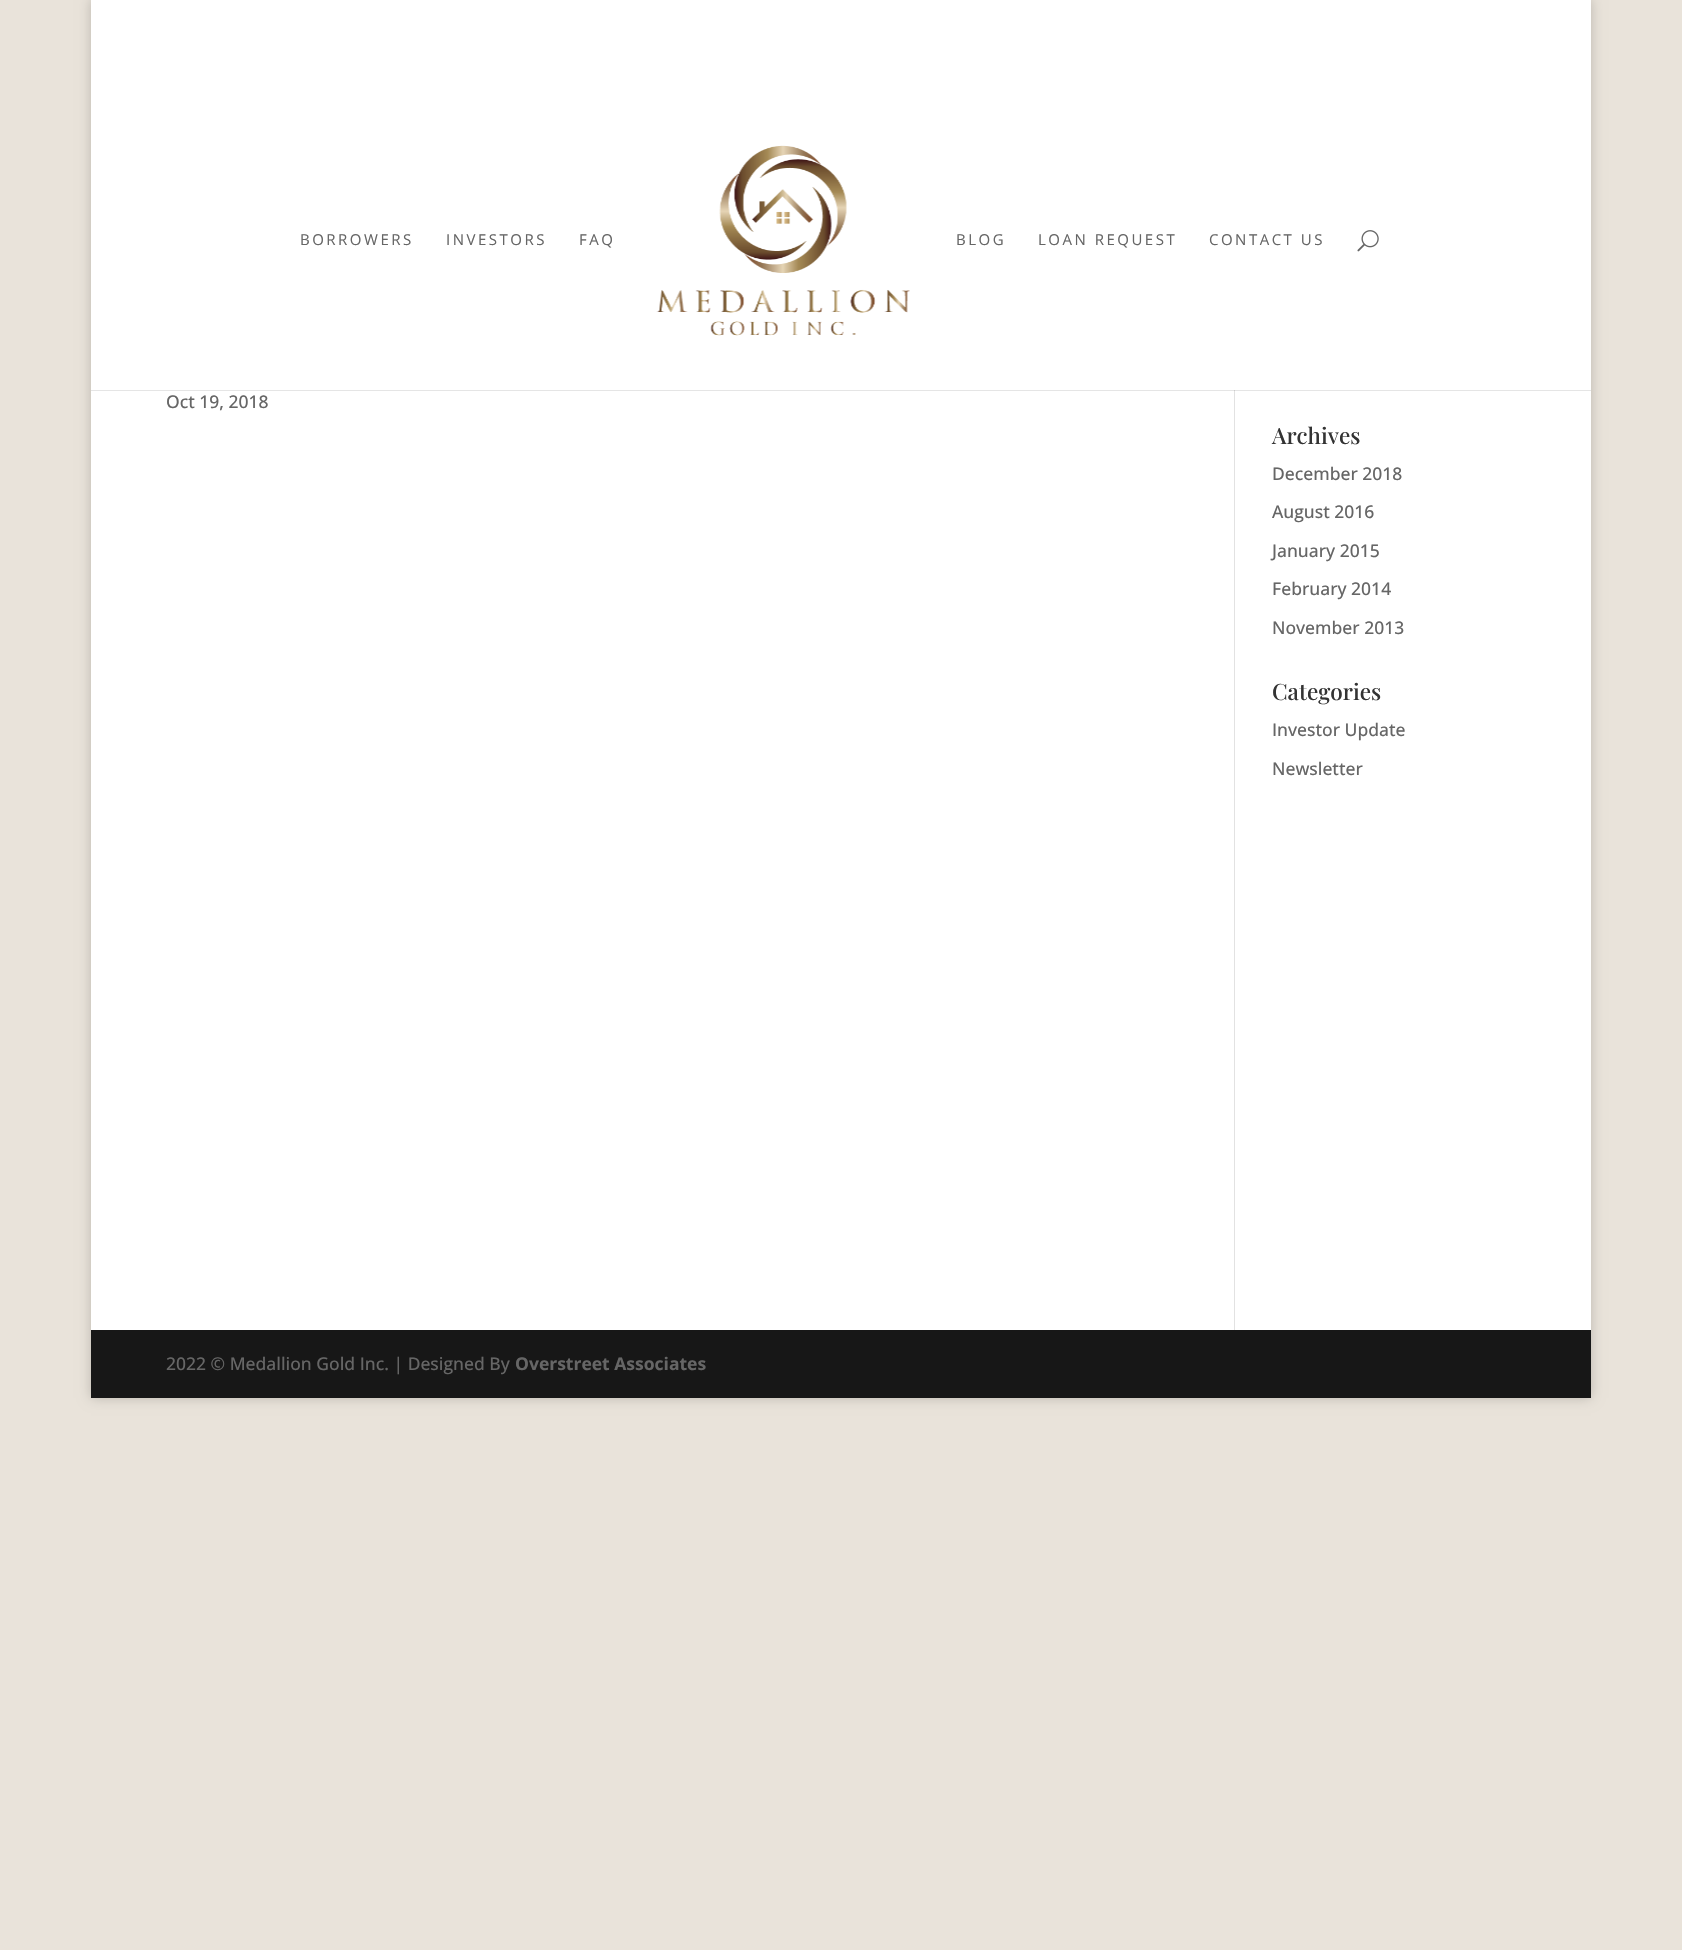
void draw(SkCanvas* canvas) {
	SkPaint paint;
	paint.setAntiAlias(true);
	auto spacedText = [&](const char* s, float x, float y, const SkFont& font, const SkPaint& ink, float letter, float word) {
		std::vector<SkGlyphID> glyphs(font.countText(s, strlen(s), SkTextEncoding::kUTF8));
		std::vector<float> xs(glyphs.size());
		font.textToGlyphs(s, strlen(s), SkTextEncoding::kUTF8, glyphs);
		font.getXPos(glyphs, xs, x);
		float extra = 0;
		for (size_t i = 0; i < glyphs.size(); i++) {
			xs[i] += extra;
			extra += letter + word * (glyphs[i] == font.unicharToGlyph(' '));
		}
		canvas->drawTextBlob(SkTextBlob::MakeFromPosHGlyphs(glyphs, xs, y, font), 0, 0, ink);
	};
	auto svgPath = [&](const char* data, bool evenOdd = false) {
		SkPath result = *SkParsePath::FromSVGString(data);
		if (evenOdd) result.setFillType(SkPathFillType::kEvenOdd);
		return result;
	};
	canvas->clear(0xffe9e3da);
	paint.setColor(0x33000000);
	paint.setMaskFilter(SkMaskFilter::MakeBlur(kNormal_SkBlurStyle, 6));
	canvas->drawRect(SkRect::MakeXYWH(91, -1, 1500, 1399), paint);
	paint.setMaskFilter(nullptr);
	paint.setColor(0xffffffff);
	canvas->drawRect(SkRect::MakeXYWH(91, 0, 1500, 1330), paint);
	paint.setColor(0xffe2e2e2);
	canvas->drawRect(SkRect::MakeXYWH(1234, 390, 1, 940), paint);
	paint.setColor(0x1a000000);
	canvas->drawPath(svgPath("M91 1V391H1591V390H91Z"), paint);
	SkFont f1(fontMgr->matchFamilyStyle("Open Sans", SkFontStyle::Normal()), 15);
	f1.setSubpixel(true);
	paint.setColor(0xff666666);
	spacedText("BORROWERS", 300, 245, f1, paint, 2.5, 0);
	spacedText("INVESTORS", 446, 245, f1, paint, 2.5, 0);
	spacedText("FAQ", 579, 245, f1, paint, 2.5, 0);
	canvas->drawImageRect(SkImages::DeferredFromEncodedData(SkData::MakeFromFileName("img1.png")), SkRect::MakeXYWH(656, 145, 254, 191), SkSamplingOptions());
	spacedText("BLOG", 956, 245, f1, paint, 2.5, 0);
	spacedText("LOAN REQUEST", 1038, 245, f1, paint, 2.5, 0);
	spacedText("CONTACT US", 1209, 245, f1, paint, 2.5, 0);
	canvas->drawImageRect(SkImages::DeferredFromEncodedData(SkData::MakeFromFileName("img2.png")), SkRect::MakeXYWH(1357, 230, 22, 22), SkSamplingOptions());
	SkFont f2(fontMgr->matchFamilyStyle("Open Sans", SkFontStyle(500, SkFontStyle::kNormal_Width, SkFontStyle::kUpright_Slant)), 17.5);
	f2.setSubpixel(true);
	canvas->drawString("Oct 19, 2018", 166, 408, f2, paint);
	SkFont f3(fontMgr->matchFamilyStyle("Playfair Display", SkFontStyle(500, SkFontStyle::kNormal_Width, SkFontStyle::kUpright_Slant)), 22.5);
	f3.setSubpixel(true);
	paint.setColor(0xff333333);
	canvas->drawString("Archives", 1272, 444, f3, paint);
	paint.setColor(0xff666666);
	canvas->drawString("December 2018", 1272, 480, f2, paint);
	canvas->drawString("August 2016", 1272, 518, f2, paint);
	canvas->drawString("January 2015", 1272, 557, f2, paint);
	canvas->drawString("February 2014", 1272, 595, f2, paint);
	canvas->drawString("November 2013", 1272, 634, f2, paint);
	paint.setColor(0xff333333);
	canvas->drawString("Categories", 1272, 700, f3, paint);
	paint.setColor(0xff666666);
	canvas->drawString("Investor Update", 1272, 736, f2, paint);
	canvas->drawString("Newsletter", 1272, 775, f2, paint);
	paint.setColor(0xff171717);
	canvas->drawRect(SkRect::MakeXYWH(91, 1330, 1500, 68), paint);
	paint.setColor(0xff666666);
	canvas->drawString("2022 © Medallion Gold Inc. | Designed By", 166, 1370, f2, paint);
	SkFont f4(fontMgr->matchFamilyStyle("Open Sans", SkFontStyle::Bold()), 17.5);
	f4.setSubpixel(true);
	canvas->drawString("Overstreet Associates", 515, 1370, f4, paint);
}
